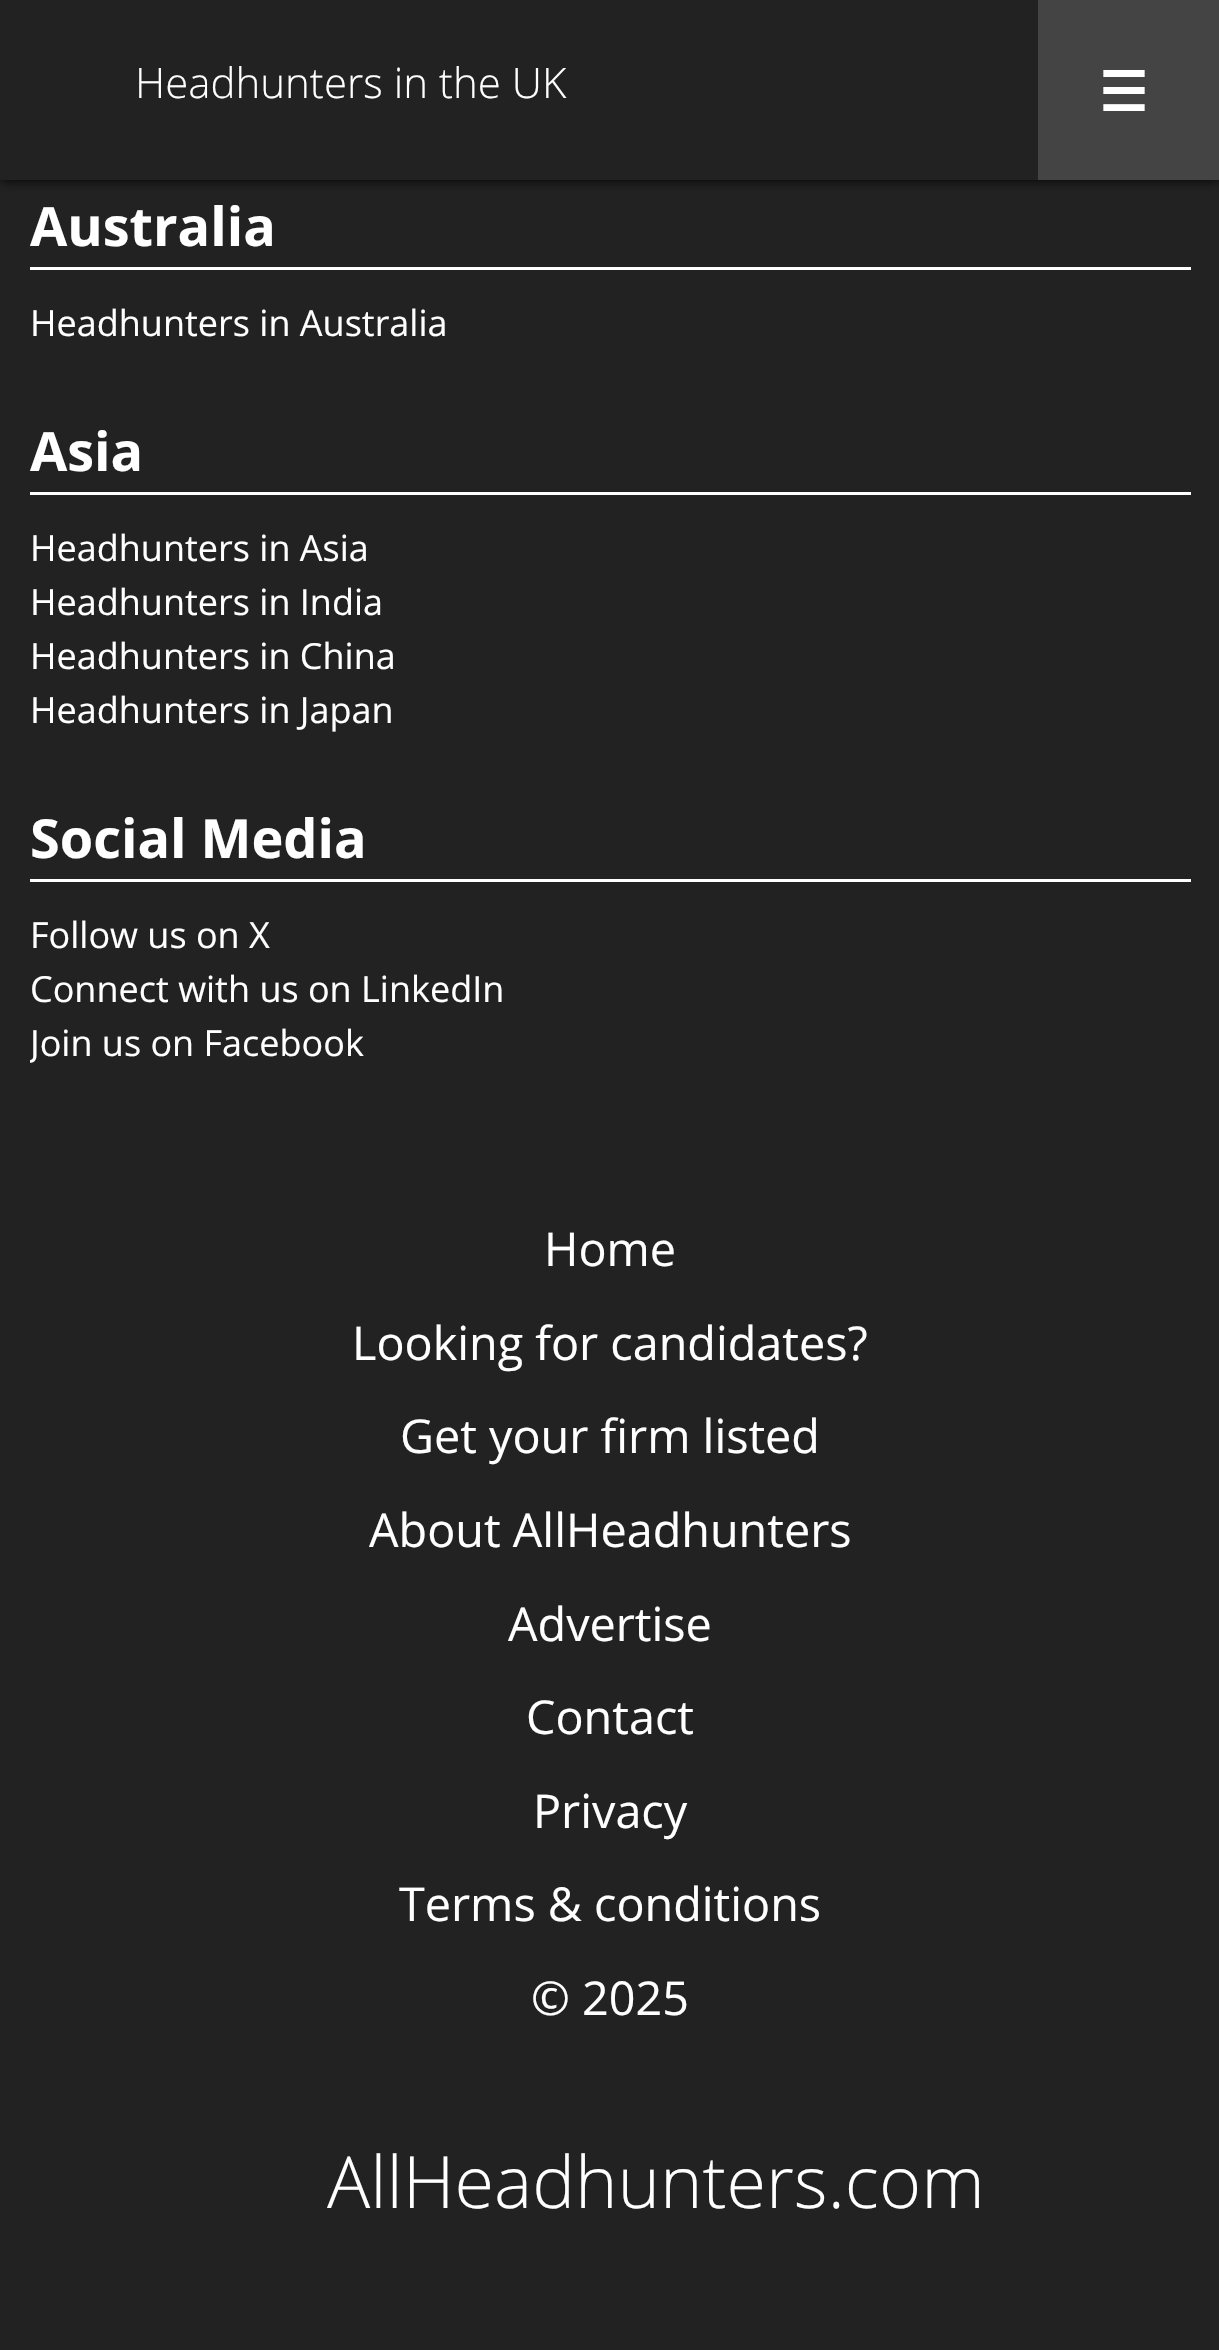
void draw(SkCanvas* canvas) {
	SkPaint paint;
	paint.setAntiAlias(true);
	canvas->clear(0xff222222);
	paint.setColor(0xff000000);
	paint.setMaskFilter(SkMaskFilter::MakeBlur(kNormal_SkBlurStyle, 6));
	canvas->drawRect(SkRect::MakeXYWH(0, 0, 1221, 180), paint);
	paint.setMaskFilter(nullptr);
	paint.setColor(0xff222222);
	canvas->drawRect(SkRect::MakeXYWH(0, 0, 1038, 180), paint);
	SkFont f1(fontMgr->matchFamilyStyle("Open Sans", SkFontStyle(300, SkFontStyle::kNormal_Width, SkFontStyle::kUpright_Slant)), 42);
	f1.setSubpixel(true);
	paint.setColor(0xffffffff);
	canvas->drawString("Headhunters in the UK", 135, 98, f1, paint);
	paint.setColor(0xff444444);
	canvas->drawRect(SkRect::MakeXYWH(1038, 0, 181, 180), paint);
	SkFont f2(fontMgr->matchFamilyStyle("DejaVu Sans", SkFontStyle::Bold()), 54);
	f2.setSubpixel(true);
	paint.setColor(0xffffffff);
	canvas->drawString("☰", 1099, 111, f2, paint);
	canvas->drawRect(SkRect::MakeXYWH(30, 267, 1161, 3), paint);
	SkFont f3(fontMgr->matchFamilyStyle("Open Sans", SkFontStyle::Bold()), 54);
	f3.setSubpixel(true);
	canvas->drawString("Australia", 30, 246, f3, paint);
	SkFont f4(fontMgr->matchFamilyStyle("Open Sans", SkFontStyle::Normal()), 36);
	f4.setSubpixel(true);
	canvas->drawString("Headhunters in Australia", 30, 336, f4, paint);
	canvas->drawRect(SkRect::MakeXYWH(30, 492, 1161, 3), paint);
	canvas->drawString("Asia", 30, 471, f3, paint);
	canvas->drawString("Headhunters in Asia", 30, 561, f4, paint);
	canvas->drawString("Headhunters in India", 30, 615, f4, paint);
	canvas->drawString("Headhunters in China", 30, 669, f4, paint);
	canvas->drawString("Headhunters in Japan", 30, 723, f4, paint);
	canvas->drawRect(SkRect::MakeXYWH(30, 879, 1161, 3), paint);
	canvas->drawString("Social Media", 30, 858, f3, paint);
	canvas->drawString("Follow us on X", 30, 948, f4, paint);
	canvas->drawString("Connect with us on LinkedIn", 30, 1002, f4, paint);
	canvas->save();
	canvas->clipRect(SkRect::MakeXYWH(30, 0, 1161, 1131));
	canvas->drawString("Join us on Facebook", 30, 1056, f4, paint);
	canvas->restore();
	SkFont f5(fontMgr->matchFamilyStyle("Open Sans", SkFontStyle::Normal()), 46.75);
	f5.setSubpixel(true);
	canvas->drawString("Home", 544, 1266, f5, paint);
	canvas->drawString("Looking for candidates?", 352, 1360, f5, paint);
	canvas->drawString("Get your firm listed", 400, 1453, f5, paint);
	canvas->drawString("About AllHeadhunters", 369, 1547, f5, paint);
	canvas->drawString("Advertise", 508, 1641, f5, paint);
	canvas->drawString("Contact", 526, 1734, f5, paint);
	canvas->drawString("Privacy", 533, 1828, f5, paint);
	canvas->drawString("Terms & conditions", 399, 1921, f5, paint);
	canvas->drawString("© 2025", 531, 2015, f5, paint);
	SkFont f6(fontMgr->matchFamilyStyle("Open Sans", SkFontStyle(300, SkFontStyle::kNormal_Width, SkFontStyle::kUpright_Slant)), 72);
	f6.setSubpixel(true);
	canvas->drawString("AllHeadhunters.com", 327, 2208, f6, paint);
}
